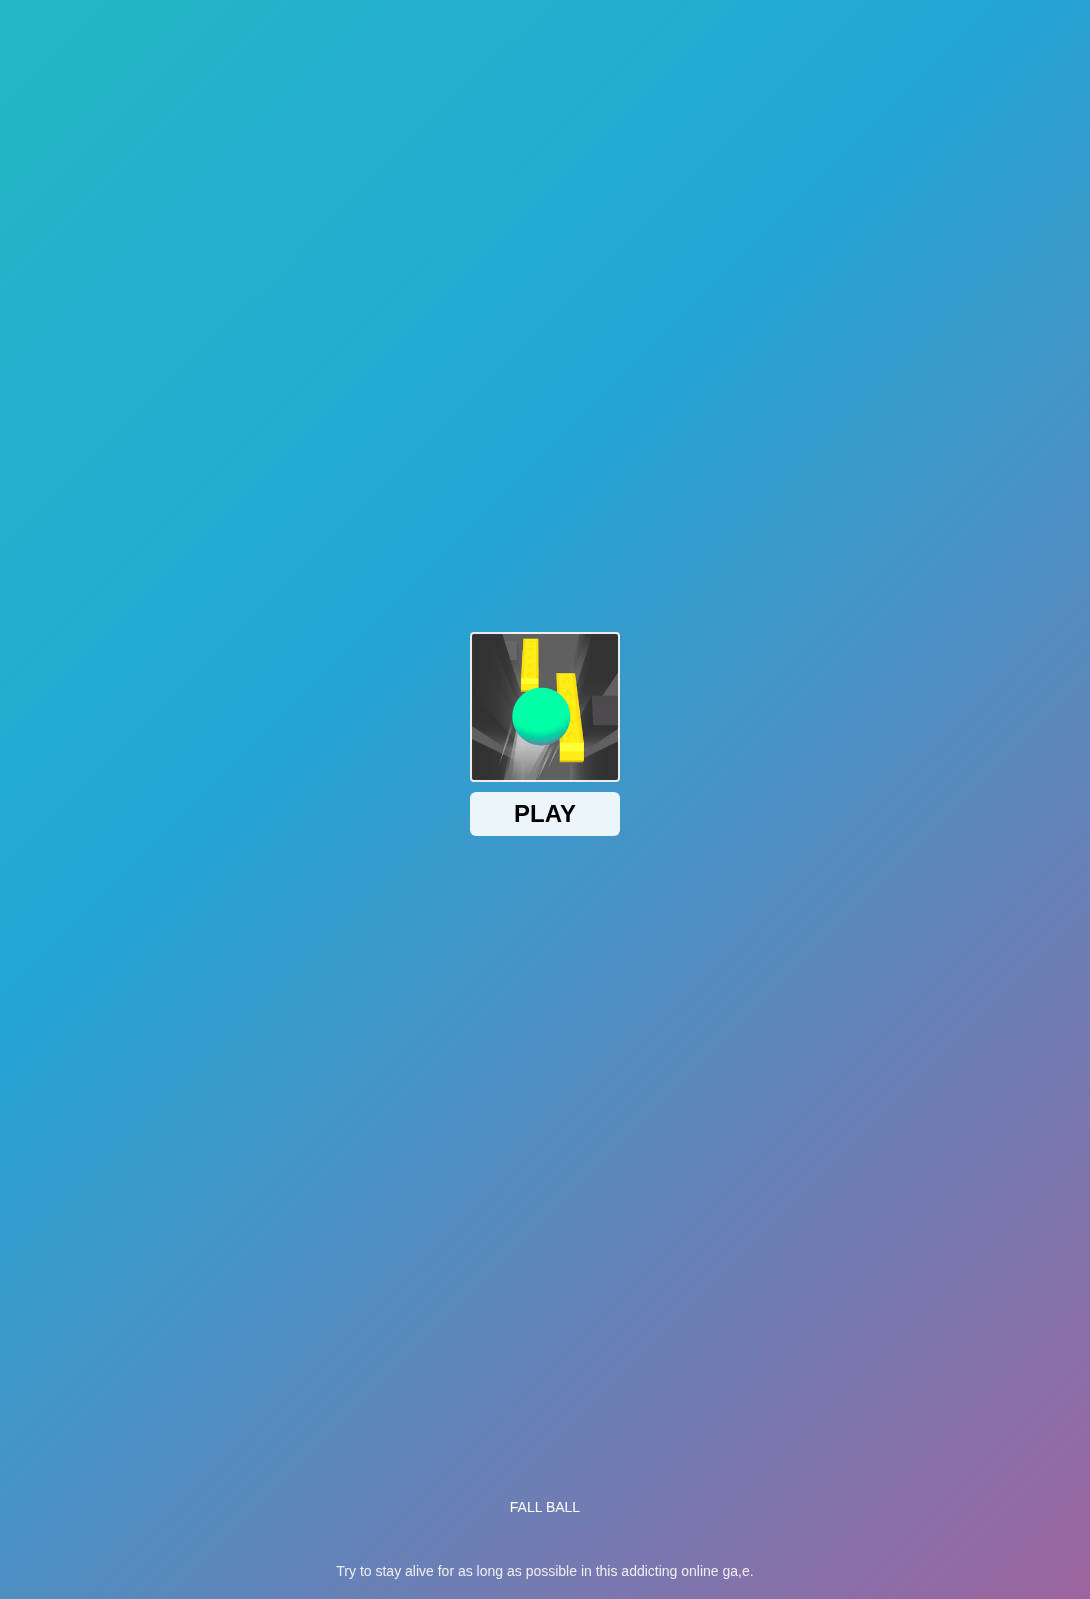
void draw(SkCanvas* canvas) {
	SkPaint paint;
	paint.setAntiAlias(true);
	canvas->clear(0xffffffff);
	canvas->drawImageRect(SkImages::DeferredFromEncodedData(SkData::MakeFromFileName("img1.png")), SkRect::MakeXYWH(0, 0, 1090, 1599), SkSamplingOptions());
}
